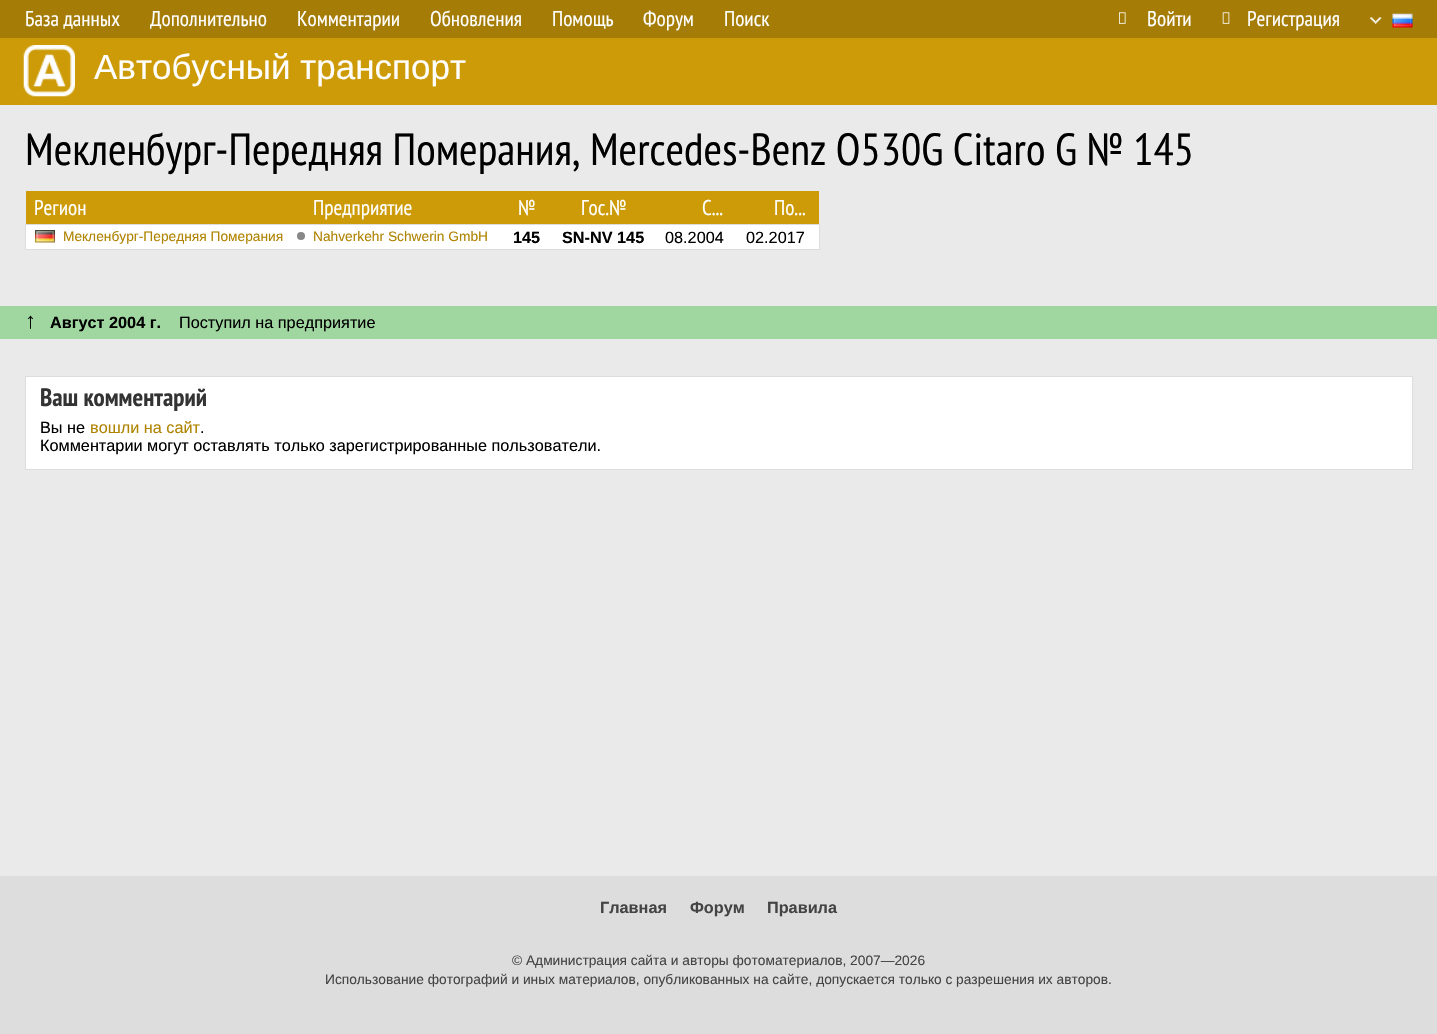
void draw(SkCanvas* canvas) {
	SkPaint paint;
	paint.setAntiAlias(true);
	canvas->clear(0xffdddddd);
	paint.setColor(0xffa47c06);
	canvas->drawRect(SkRect::MakeXYWH(0, 0, 1437, 38), paint);
	SkFont f1(fontMgr->matchFamilyStyle("PT Sans Narrow", SkFontStyle::Normal()), 21.25);
	f1.setSubpixel(true);
	paint.setColor(0xffffffff);
	canvas->drawString("База данных", 25, 26, f1, paint);
	canvas->drawString("Дополнительно", 150, 26, f1, paint);
	canvas->drawString("Комментарии", 297, 26, f1, paint);
	canvas->drawString("Обновления", 430, 26, f1, paint);
	canvas->drawString("Помощь", 552, 26, f1, paint);
	canvas->drawString("Форум", 643, 26, f1, paint);
	canvas->drawString("Поиск", 724, 26, f1, paint);
	canvas->drawImageRect(SkImages::DeferredFromEncodedData(SkData::MakeFromFileName("img1.png")), SkRect::MakeXYWH(1119, 12, 7, 12), SkSamplingOptions());
	canvas->drawString("Войти", 1147, 26, f1, paint);
	canvas->drawImageRect(SkImages::DeferredFromEncodedData(SkData::MakeFromFileName("img2.png")), SkRect::MakeXYWH(1222, 12, 8, 12), SkSamplingOptions());
	canvas->drawString("Регистрация", 1247, 26, f1, paint);
	canvas->drawImageRect(SkImages::DeferredFromEncodedData(SkData::MakeFromFileName("img3.png")), SkRect::MakeXYWH(1370, 17, 12, 7), SkSamplingOptions());
	canvas->drawImageRect(SkImages::DeferredFromEncodedData(SkData::MakeFromFileName("img4.png")), SkRect::MakeXYWH(1392, 13, 21, 15), SkSamplingOptions());
	paint.setColor(0xffcd9b08);
	canvas->drawRect(SkRect::MakeXYWH(0, 38, 1437, 67), paint);
	canvas->drawImageRect(SkImages::DeferredFromEncodedData(SkData::MakeFromFileName("img5.png")), SkRect::MakeXYWH(23, 45, 52, 52), SkSamplingOptions());
	SkFont f2(fontMgr->matchFamilyStyle("Liberation Sans", SkFontStyle::Normal()), 35);
	f2.setSubpixel(true);
	paint.setColor(0xffffffff);
	canvas->drawString("Автобусный транспорт", 94, 79, f2, paint);
	paint.setColor(0xffeaeaea);
	canvas->drawRect(SkRect::MakeXYWH(0, 105, 1437, 771), paint);
	SkFont f3(fontMgr->matchFamilyStyle("PT Sans Narrow", SkFontStyle::Normal()), 45);
	f3.setSubpixel(true);
	paint.setColor(0xff000000);
	canvas->drawString("Мекленбург-Передняя Померания, Mercedes-Benz O530G Citaro G № 145", 25, 165, f3, paint);
	paint.setColor(0xffcd9b08);
	canvas->drawRect(SkRect::MakeXYWH(26, 191, 793, 33), paint);
	paint.setColor(0xffffffff);
	canvas->drawString("Регион", 34, 215, f1, paint);
	canvas->drawString("Предприятие", 313, 215, f1, paint);
	canvas->drawString("№", 518, 215, f1, paint);
	canvas->drawString("Гос.№", 581, 215, f1, paint);
	canvas->drawString("С...", 702, 215, f1, paint);
	canvas->drawString("По...", 774, 215, f1, paint);
	canvas->drawRect(SkRect::MakeXYWH(26, 225, 793, 24), paint);
	paint.setColor(0xffdddddd);
	canvas->drawRect(SkRect::MakeXYWH(25, 224, 795, 1), paint);
	canvas->drawRect(SkRect::MakeXYWH(819, 224, 1, 26), paint);
	canvas->drawRect(SkRect::MakeXYWH(25, 249, 795, 1), paint);
	canvas->drawRect(SkRect::MakeXYWH(25, 224, 1, 26), paint);
	canvas->drawImageRect(SkImages::DeferredFromEncodedData(SkData::MakeFromFileName("img6.png")), SkRect::MakeXYWH(35, 230, 20, 13), SkSamplingOptions());
	SkFont f4(fontMgr->matchFamilyStyle("Liberation Sans", SkFontStyle::Normal()), 13.75);
	f4.setSubpixel(true);
	paint.setColor(0xffb08300);
	canvas->drawString("Мекленбург-Передняя Померания", 63, 241, f4, paint);
	paint.setColor(0xff888888);
	canvas->drawCircle(301, 236, 4, paint);
	paint.setColor(0xffb08300);
	canvas->drawString("Nahverkehr Schwerin GmbH", 313, 241, f4, paint);
	SkFont f5(fontMgr->matchFamilyStyle("Liberation Sans", SkFontStyle::Bold()), 16.25);
	f5.setSubpixel(true);
	paint.setColor(0xff000000);
	canvas->drawString("145", 513, 243, f5, paint);
	canvas->drawString("SN-NV 145", 562, 243, f5, paint);
	SkFont f6(fontMgr->matchFamilyStyle("Liberation Sans", SkFontStyle::Normal()), 16.25);
	f6.setSubpixel(true);
	canvas->drawString("08.2004", 665, 243, f6, paint);
	canvas->drawString("02.2017", 746, 243, f6, paint);
	paint.setColor(0xffa0d6a0);
	canvas->drawRect(SkRect::MakeXYWH(0, 306, 1437, 33), paint);
	SkFont f7(fontMgr->matchFamilyStyle("Liberation Sans", SkFontStyle::Normal()), 22);
	f7.setSubpixel(true);
	paint.setColor(0xff000000);
	canvas->drawString("↑", 25, 328, f7, paint);
	canvas->drawString("Август 2004 г.", 50, 328, f5, paint);
	canvas->drawString("Поступил на предприятие", 179, 328, f6, paint);
	paint.setColor(0xffffffff);
	canvas->drawRect(SkRect::MakeXYWH(25.5, 376.5, 1387, 93), paint);
	paint.setStroke(true);
	paint.setStrokeWidth(1);
	paint.setColor(0xffdddddd);
	canvas->drawRect(SkRect::MakeXYWH(25.5, 376.5, 1387, 93), paint);
	SkFont f8(fontMgr->matchFamilyStyle("PT Sans Narrow", SkFontStyle::Bold()), 25);
	f8.setSubpixel(true);
	paint.setStroke(false);
	paint.setColor(0xff333333);
	canvas->drawString("Ваш комментарий", 40, 406, f8, paint);
	paint.setColor(0xff000000);
	canvas->drawString("Вы не", 40, 433, f6, paint);
	paint.setColor(0xffb08300);
	canvas->drawString("вошли на сайт", 90, 433, f6, paint);
	paint.setColor(0xff000000);
	canvas->drawString(".", 200, 433, f6, paint);
	canvas->drawString("Комментарии могут оставлять только зарегистрированные пользователи.", 40, 451, f6, paint);
	paint.setColor(0xff444444);
	canvas->drawString("Главная", 600, 913, f5, paint);
	canvas->drawString("Форум", 690, 913, f5, paint);
	canvas->drawString("Правила", 767, 913, f5, paint);
	canvas->drawString("© Администрация сайта и авторы фотоматериалов, 2007—2026", 512, 965, f4, paint);
	canvas->drawString("Использование фотографий и иных материалов, опубликованных на сайте, допускается только с разрешения их авторов.", 325, 984, f4, paint);
}
